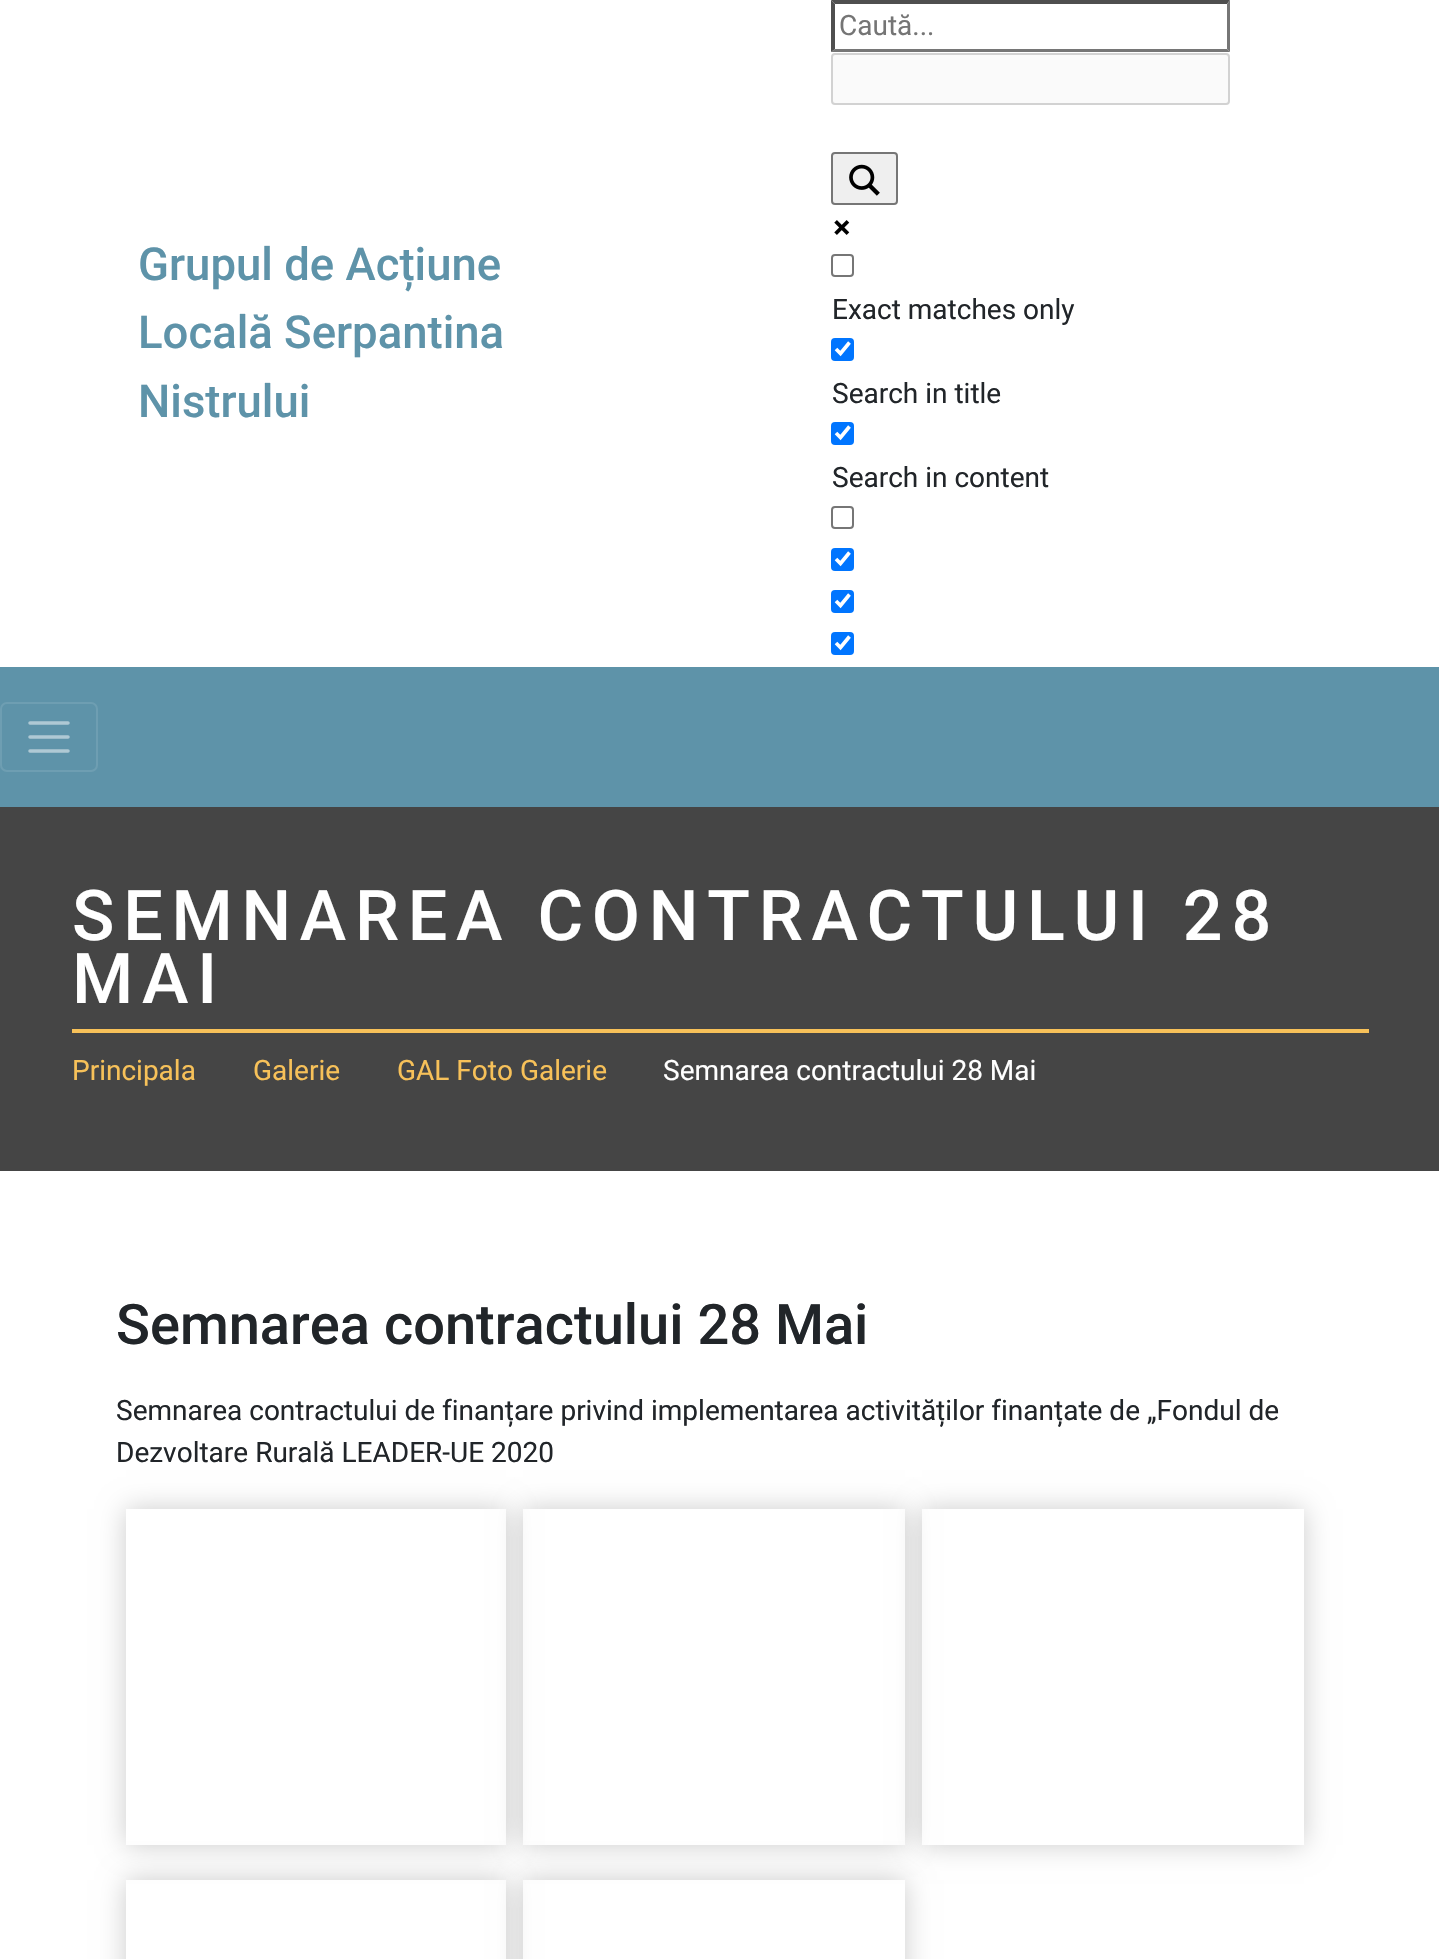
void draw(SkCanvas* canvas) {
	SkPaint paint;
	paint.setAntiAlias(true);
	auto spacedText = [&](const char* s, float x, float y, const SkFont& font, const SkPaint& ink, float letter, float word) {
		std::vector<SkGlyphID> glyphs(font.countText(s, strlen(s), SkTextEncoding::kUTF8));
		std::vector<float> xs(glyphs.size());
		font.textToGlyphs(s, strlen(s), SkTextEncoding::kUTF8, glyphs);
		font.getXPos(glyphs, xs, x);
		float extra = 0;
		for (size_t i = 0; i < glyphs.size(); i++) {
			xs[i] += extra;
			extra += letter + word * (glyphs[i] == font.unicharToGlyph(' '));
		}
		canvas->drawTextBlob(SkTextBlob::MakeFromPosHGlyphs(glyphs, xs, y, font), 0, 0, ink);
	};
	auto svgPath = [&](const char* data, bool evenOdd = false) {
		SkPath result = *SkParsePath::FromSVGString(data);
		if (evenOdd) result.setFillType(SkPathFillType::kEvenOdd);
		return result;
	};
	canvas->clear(0xffffffff);
	SkFont f1(fontMgr->matchFamilyStyle("Roboto", SkFontStyle(500, SkFontStyle::kNormal_Width, SkFontStyle::kUpright_Slant)), 45.5);
	f1.setSubpixel(true);
	paint.setColor(0xff5e93a9);
	canvas->drawString("Grupul de Acțiune", 138, 280, f1, paint);
	canvas->drawString("Locală Serpantina", 138, 348, f1, paint);
	canvas->drawString("Nistrului", 138, 417, f1, paint);
	paint.setColor(0xff4f4f4f);
	canvas->drawPath(svgPath("M831 0H1230L1227 4H835Z"), paint);
	paint.setColor(0xff767676);
	canvas->drawPath(svgPath("M1230 0V52L1227 49V4Z"), paint);
	canvas->drawPath(svgPath("M1230 52H831L835 49H1227Z"), paint);
	paint.setColor(0xff4f4f4f);
	canvas->drawPath(svgPath("M831 52V0L835 4V49Z"), paint);
	SkFont f2(fontMgr->matchFamilyStyle("Roboto", SkFontStyle::Normal()), 28);
	f2.setSubpixel(true);
	paint.setColor(0xff757575);
	canvas->drawString("Caută...", 839, 35, f2, paint);
	paint.setColor(0xfffafafa);
	canvas->drawRoundRect(SkRect::MakeXYWH(832, 54, 397, 50), 3, 3, paint);
	paint.setStroke(true);
	paint.setStrokeWidth(2);
	paint.setColor(0xffd2d2d2);
	canvas->drawRoundRect(SkRect::MakeXYWH(832, 54, 397, 50), 3, 3, paint);
	paint.setStroke(false);
	paint.setColor(0xffefefef);
	canvas->drawRoundRect(SkRect::MakeXYWH(832, 153, 65, 51), 3, 3, paint);
	paint.setStroke(true);
	paint.setColor(0xff767676);
	canvas->drawRoundRect(SkRect::MakeXYWH(832, 153, 65, 51), 3, 3, paint);
	canvas->drawImageRect(SkImages::DeferredFromEncodedData(SkData::MakeFromFileName("img1.png")), SkRect::MakeXYWH(849, 164, 31, 32), SkSamplingOptions());
	canvas->drawImageRect(SkImages::DeferredFromEncodedData(SkData::MakeFromFileName("img2.png")), SkRect::MakeXYWH(834, 220, 16, 15), SkSamplingOptions());
	canvas->drawRoundRect(SkRect::MakeXYWH(832, 255, 21, 21), 3, 3, paint);
	paint.setStroke(false);
	paint.setColor(0xff212529);
	canvas->drawString("Exact matches only", 832, 319, f2, paint);
	paint.setColor(0xff0075ff);
	canvas->drawRoundRect(SkRect::MakeXYWH(831, 338, 23, 23), 4, 4, paint);
	paint.setStroke(true);
	paint.setStrokeWidth(3.6);
	paint.setColor(0xffffffff);
	canvas->drawPath(svgPath("M836 349L840.5 353.5L849.5 342.5"), paint);
	paint.setStroke(false);
	paint.setColor(0xff212529);
	canvas->drawString("Search in title", 832, 403, f2, paint);
	paint.setColor(0xff0075ff);
	canvas->drawRoundRect(SkRect::MakeXYWH(831, 422, 23, 23), 4, 4, paint);
	paint.setStroke(true);
	paint.setColor(0xffffffff);
	canvas->drawPath(svgPath("M836 433L840.5 437.5L849.5 426.5"), paint);
	paint.setStroke(false);
	paint.setColor(0xff212529);
	canvas->drawString("Search in content", 832, 487, f2, paint);
	paint.setStroke(true);
	paint.setStrokeWidth(2);
	paint.setColor(0xff767676);
	canvas->drawRoundRect(SkRect::MakeXYWH(832, 507, 21, 21), 3, 3, paint);
	paint.setStroke(false);
	paint.setColor(0xff0075ff);
	canvas->drawRoundRect(SkRect::MakeXYWH(831, 548, 23, 23), 4, 4, paint);
	paint.setStroke(true);
	paint.setStrokeWidth(3.6);
	paint.setColor(0xffffffff);
	canvas->drawPath(svgPath("M836 559L840.5 563.5L849.5 552.5"), paint);
	paint.setStroke(false);
	paint.setColor(0xff0075ff);
	canvas->drawRoundRect(SkRect::MakeXYWH(831, 590, 23, 23), 4, 4, paint);
	paint.setStroke(true);
	paint.setColor(0xffffffff);
	canvas->drawPath(svgPath("M836 601L840.5 605.5L849.5 594.5"), paint);
	paint.setStroke(false);
	paint.setColor(0xff0075ff);
	canvas->drawRoundRect(SkRect::MakeXYWH(831, 632, 23, 23), 4, 4, paint);
	paint.setStroke(true);
	paint.setColor(0xffffffff);
	canvas->drawPath(svgPath("M836 643L840.5 647.5L849.5 636.5"), paint);
	paint.setStroke(false);
	paint.setColor(0xff5e93a9);
	canvas->drawRect(SkRect::MakeXYWH(0, 667, 1439, 140), paint);
	paint.setStroke(true);
	paint.setStrokeWidth(2);
	paint.setColor(0xff6e9eb2);
	canvas->drawRoundRect(SkRect::MakeXYWH(1, 703, 96, 68), 6, 6, paint);
	paint.setStrokeWidth(3.5);
	paint.setStrokeCap(SkPaint::kRound_Cap);
	paint.setColor(0xffafc9d4);
	canvas->drawPath(svgPath("M30 723H68M30 737H68M30 751H68"), paint);
	paint.setStroke(false);
	paint.setColor(0xff454545);
	canvas->drawRect(SkRect::MakeXYWH(0, 807, 1439, 364), paint);
	SkFont f3(fontMgr->matchFamilyStyle("Roboto", SkFontStyle(500, SkFontStyle::kNormal_Width, SkFontStyle::kUpright_Slant)), 70);
	f3.setSubpixel(true);
	paint.setColor(0xffffffff);
	spacedText("SEMNAREA CONTRACTULUI 28", 72, 940, f3, paint, 8.75, 0);
	spacedText("MAI", 72, 1003, f3, paint, 8.75, 0);
	paint.setColor(0xfff7c159);
	canvas->drawRect(SkRect::MakeXYWH(72, 1029, 1297, 4), paint);
	canvas->drawString("Principala", 72, 1080, f2, paint);
	canvas->drawString("Galerie", 253, 1080, f2, paint);
	canvas->drawString("GAL Foto Galerie", 397, 1080, f2, paint);
	paint.setColor(0xffffffff);
	canvas->drawString("Semnarea contractului 28 Mai", 663, 1080, f2, paint);
	SkFont f4(fontMgr->matchFamilyStyle("Roboto", SkFontStyle(500, SkFontStyle::kNormal_Width, SkFontStyle::kUpright_Slant)), 56);
	f4.setSubpixel(true);
	paint.setColor(0xff212529);
	canvas->drawString("Semnarea contractului 28 Mai", 116, 1344, f4, paint);
	canvas->drawString("Semnarea contractului de finanțare privind implementarea activităților finanțate de „Fondul de", 116, 1420, f2, paint);
	canvas->drawString("Dezvoltare Rurală LEADER-UE 2020", 116, 1462, f2, paint);
	canvas->save();
	canvas->clipPath(svgPath("M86 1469H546V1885H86ZM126 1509H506V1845H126Z", true), true);
	paint.setColor(0x33000000);
	paint.setMaskFilter(SkMaskFilter::MakeBlur(kNormal_SkBlurStyle, 13));
	canvas->drawRect(SkRect::MakeXYWH(126, 1509, 380, 336), paint);
	paint.setMaskFilter(nullptr);
	canvas->restore();
	canvas->save();
	canvas->clipPath(svgPath("M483 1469H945V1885H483ZM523 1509H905V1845H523Z", true), true);
	paint.setMaskFilter(SkMaskFilter::MakeBlur(kNormal_SkBlurStyle, 13));
	canvas->drawRect(SkRect::MakeXYWH(523, 1509, 382, 336), paint);
	paint.setMaskFilter(nullptr);
	canvas->restore();
	canvas->save();
	canvas->clipPath(svgPath("M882 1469H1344V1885H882ZM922 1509H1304V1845H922Z", true), true);
	paint.setMaskFilter(SkMaskFilter::MakeBlur(kNormal_SkBlurStyle, 13));
	canvas->drawRect(SkRect::MakeXYWH(922, 1509, 382, 336), paint);
	paint.setMaskFilter(nullptr);
	canvas->restore();
	canvas->save();
	canvas->clipPath(svgPath("M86 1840H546V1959H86ZM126 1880H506V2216H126Z", true), true);
	paint.setMaskFilter(SkMaskFilter::MakeBlur(kNormal_SkBlurStyle, 13));
	canvas->drawRect(SkRect::MakeXYWH(126, 1880, 380, 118), paint);
	paint.setMaskFilter(nullptr);
	canvas->restore();
	canvas->save();
	canvas->clipPath(svgPath("M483 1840H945V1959H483ZM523 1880H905V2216H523Z", true), true);
	paint.setMaskFilter(SkMaskFilter::MakeBlur(kNormal_SkBlurStyle, 13));
	canvas->drawRect(SkRect::MakeXYWH(523, 1880, 382, 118), paint);
	paint.setMaskFilter(nullptr);
	canvas->restore();
}
